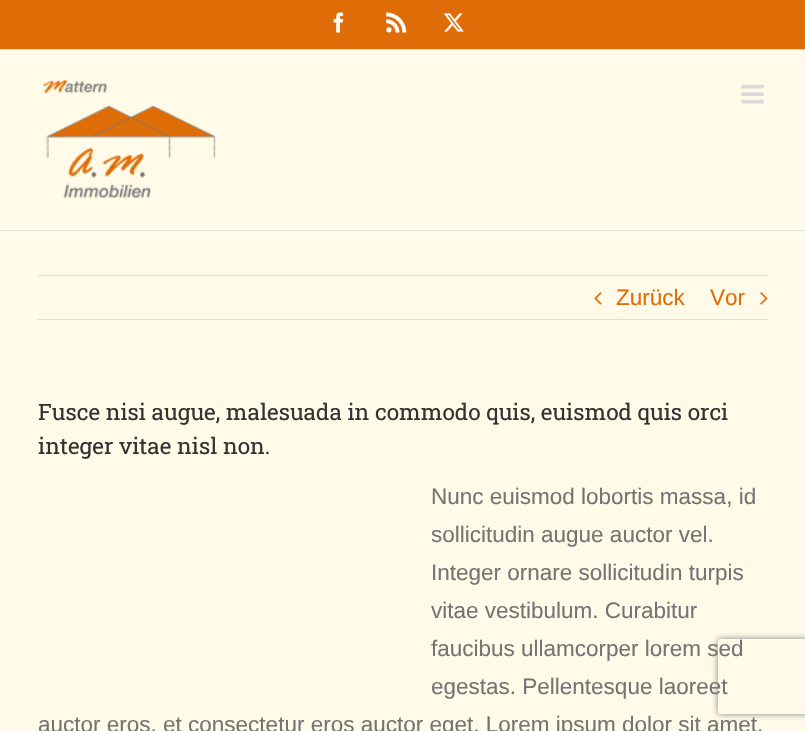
void draw(SkCanvas* canvas) {
	SkPaint paint;
	paint.setAntiAlias(true);
	auto svgPath = [&](const char* data, bool evenOdd = false) {
		SkPath result = *SkParsePath::FromSVGString(data);
		if (evenOdd) result.setFillType(SkPathFillType::kEvenOdd);
		return result;
	};
	canvas->clear(0xfffffbe8);
	paint.setColor(0xffdf6d07);
	canvas->drawRect(SkRect::MakeXYWH(0, 0, 805, 49), paint);
	paint.setColor(0xffe1e1e1);
	canvas->drawRect(SkRect::MakeXYWH(0, 49, 805, 1), paint);
	canvas->drawImageRect(SkImages::DeferredFromEncodedData(SkData::MakeFromFileName("img1.png")), SkRect::MakeXYWH(333, 12, 11, 21), SkSamplingOptions());
	canvas->drawImageRect(SkImages::DeferredFromEncodedData(SkData::MakeFromFileName("img2.png")), SkRect::MakeXYWH(386, 12, 21, 21), SkSamplingOptions());
	canvas->drawImageRect(SkImages::DeferredFromEncodedData(SkData::MakeFromFileName("img3.png")), SkRect::MakeXYWH(443, 13, 21, 19), SkSamplingOptions());
	canvas->drawRect(SkRect::MakeXYWH(0, 230, 805, 1), paint);
	canvas->drawImageRect(SkImages::DeferredFromEncodedData(SkData::MakeFromFileName("img4.png")), SkRect::MakeXYWH(43, 79, 173, 119), SkSamplingOptions());
	canvas->drawImageRect(SkImages::DeferredFromEncodedData(SkData::MakeFromFileName("img5.png")), SkRect::MakeXYWH(741, 84, 23, 20), SkSamplingOptions());
	paint.setColor(0xffe0dede);
	canvas->drawRect(SkRect::MakeXYWH(38, 275, 730, 1), paint);
	canvas->drawRect(SkRect::MakeXYWH(38, 319, 730, 1), paint);
	canvas->drawImageRect(SkImages::DeferredFromEncodedData(SkData::MakeFromFileName("img6.png")), SkRect::MakeXYWH(594, 292, 8, 13), SkSamplingOptions());
	SkFont f1(fontMgr->matchFamilyStyle("Arimo", SkFontStyle::Normal()), 22.5);
	f1.setSubpixel(true);
	paint.setColor(0xffdf6d07);
	canvas->drawString("Zurück", 616, 305, f1, paint);
	canvas->drawString("Vor", 710, 305, f1, paint);
	canvas->drawImageRect(SkImages::DeferredFromEncodedData(SkData::MakeFromFileName("img7.png")), SkRect::MakeXYWH(760, 292, 8, 13), SkSamplingOptions());
	SkFont f2(fontMgr->matchFamilyStyle("Roboto Slab", SkFontStyle::Normal()), 22.5);
	f2.setSubpixel(true);
	paint.setColor(0xff333333);
	canvas->drawString("Fusce nisi augue, malesuada in commodo quis, euismod quis orci", 38, 420, f2, paint);
	canvas->drawString("integer vitae nisl non.", 38, 454, f2, paint);
	paint.setColor(0xff747474);
	canvas->drawString("Nunc euismod lobortis massa, id", 431, 504, f1, paint);
	canvas->drawString("sollicitudin augue auctor vel.", 431, 542, f1, paint);
	canvas->drawString("Integer ornare sollicitudin turpis", 431, 580, f1, paint);
	canvas->drawString("vitae vestibulum. Curabitur", 431, 618, f1, paint);
	canvas->drawString("faucibus ullamcorper lorem sed", 431, 656, f1, paint);
	canvas->drawString("egestas. Pellentesque laoreet", 431, 694, f1, paint);
	canvas->drawString("auctor eros, et consectetur eros auctor eget. Lorem ipsum dolor sit amet,", 38, 732, f1, paint);
	canvas->save();
	canvas->clipPath(svgPath("M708 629H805V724H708ZM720.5 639H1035.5C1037 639 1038 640 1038 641.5V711.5C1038 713 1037 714 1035.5 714H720.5C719 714 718 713 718 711.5V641.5C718 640 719 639 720.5 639Z", true), true);
	paint.setColor(0xff808080);
	paint.setMaskFilter(SkMaskFilter::MakeBlur(kNormal_SkBlurStyle, 3));
	canvas->drawRoundRect(SkRect::MakeXYWH(718, 639, 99, 75), 2.5, 2.5, paint);
	paint.setMaskFilter(nullptr);
	canvas->restore();
}
